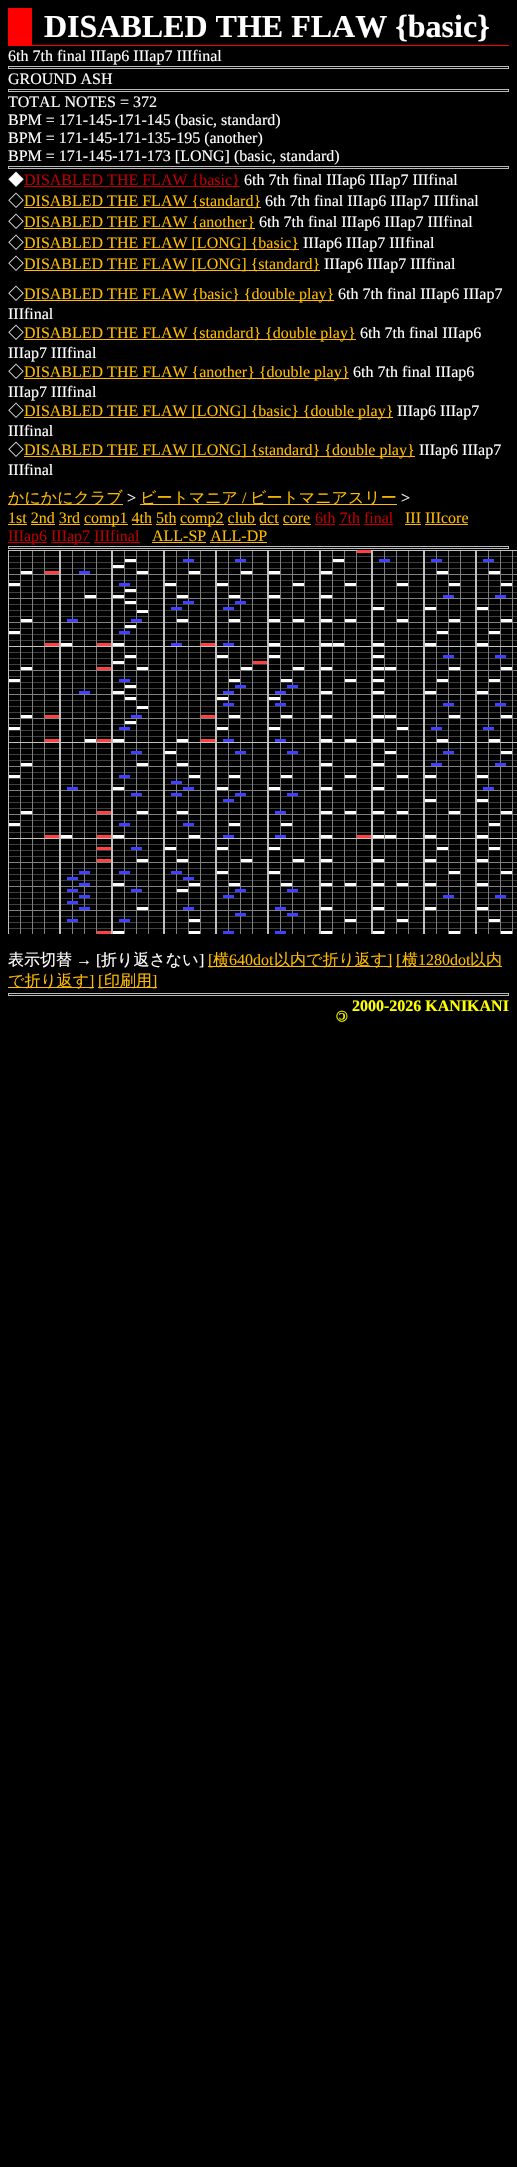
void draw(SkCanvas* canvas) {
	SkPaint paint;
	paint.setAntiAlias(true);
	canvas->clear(0xff000000);
	paint.setColor(0xffff0000);
	canvas->drawRect(SkRect::MakeXYWH(32, 45, 477, 1), paint);
	canvas->drawRect(SkRect::MakeXYWH(8, 8, 24, 38), paint);
	SkFont f1(fontMgr->matchFamilyStyle("Liberation Serif", SkFontStyle::Bold()), 32);
	f1.setSubpixel(true);
	paint.setColor(0xffffffff);
	canvas->drawString("DISABLED THE FLAW {basic}", 44, 37, f1, paint);
	SkFont f2(fontMgr->matchFamilyStyle("Liberation Serif", SkFontStyle::Normal()), 16);
	f2.setSubpixel(true);
	canvas->drawString("6th 7th final IIIap6 IIIap7 IIIfinal", 8, 61, f2, paint);
	paint.setStroke(true);
	paint.setStrokeWidth(1);
	paint.setColor(0xffbbbbbb);
	canvas->drawRect(SkRect::MakeXYWH(8.5, 66.5, 500, 2), paint);
	paint.setStroke(false);
	paint.setColor(0xffffffff);
	canvas->drawString("GROUND ASH", 8, 84, f2, paint);
	paint.setStroke(true);
	paint.setColor(0xffbbbbbb);
	canvas->drawRect(SkRect::MakeXYWH(8.5, 89.5, 500, 2), paint);
	paint.setStroke(false);
	paint.setColor(0xffffffff);
	canvas->drawString("TOTAL NOTES = 372", 8, 107, f2, paint);
	canvas->drawString("BPM = 171-145-171-145 (basic, standard)", 8, 125, f2, paint);
	canvas->drawString("BPM = 171-145-171-135-195 (another)", 8, 143, f2, paint);
	canvas->drawString("BPM = 171-145-171-173 [LONG] (basic, standard)", 8, 161, f2, paint);
	paint.setStroke(true);
	paint.setColor(0xffbbbbbb);
	canvas->drawRect(SkRect::MakeXYWH(8.5, 166.5, 500, 2), paint);
	SkFont f3(fontMgr->matchFamilyStyle("WenQuanYi Zen Hei", SkFontStyle(500, SkFontStyle::kNormal_Width, SkFontStyle::kUpright_Slant)), 16);
	f3.setSubpixel(true);
	paint.setStroke(false);
	paint.setColor(0xffffffff);
	canvas->drawString("◆", 8, 185, f3, paint);
	paint.setColor(0xffbb0000);
	canvas->drawRect(SkRect::MakeXYWH(24, 186, 216, 1), paint);
	canvas->drawString("DISABLED THE FLAW {basic}", 24, 185, f2, paint);
	paint.setColor(0xffffffff);
	canvas->drawString("6th 7th final IIIap6 IIIap7 IIIfinal", 244, 185, f2, paint);
	canvas->drawString("◇", 8, 206, f3, paint);
	paint.setColor(0xffffbb00);
	canvas->drawRect(SkRect::MakeXYWH(24, 207, 237, 1), paint);
	canvas->drawString("DISABLED THE FLAW {standard}", 24, 206, f2, paint);
	paint.setColor(0xffffffff);
	canvas->drawString("6th 7th final IIIap6 IIIap7 IIIfinal", 265, 206, f2, paint);
	canvas->drawString("◇", 8, 227, f3, paint);
	paint.setColor(0xffffbb00);
	canvas->drawRect(SkRect::MakeXYWH(24, 228, 231, 1), paint);
	canvas->drawString("DISABLED THE FLAW {another}", 24, 227, f2, paint);
	paint.setColor(0xffffffff);
	canvas->drawString("6th 7th final IIIap6 IIIap7 IIIfinal", 259, 227, f2, paint);
	canvas->drawString("◇", 8, 248, f3, paint);
	paint.setColor(0xffffbb00);
	canvas->drawRect(SkRect::MakeXYWH(24, 249, 275, 1), paint);
	canvas->drawString("DISABLED THE FLAW [LONG] {basic}", 24, 248, f2, paint);
	paint.setColor(0xffffffff);
	canvas->drawString("IIIap6 IIIap7 IIIfinal", 303, 248, f2, paint);
	canvas->drawString("◇", 8, 269, f3, paint);
	paint.setColor(0xffffbb00);
	canvas->drawRect(SkRect::MakeXYWH(24, 270, 296, 1), paint);
	canvas->drawString("DISABLED THE FLAW [LONG] {standard}", 24, 269, f2, paint);
	paint.setColor(0xffffffff);
	canvas->drawString("IIIap6 IIIap7 IIIfinal", 324, 269, f2, paint);
	canvas->drawString("◇", 8, 299, f3, paint);
	paint.setColor(0xffffbb00);
	canvas->drawRect(SkRect::MakeXYWH(24, 300, 310, 1), paint);
	canvas->drawString("DISABLED THE FLAW {basic} {double play}", 24, 299, f2, paint);
	paint.setColor(0xffffffff);
	canvas->drawString("6th 7th final IIIap6 IIIap7", 338, 299, f2, paint);
	canvas->drawString("IIIfinal", 8, 319, f2, paint);
	canvas->drawString("◇", 8, 338, f3, paint);
	paint.setColor(0xffffbb00);
	canvas->drawRect(SkRect::MakeXYWH(24, 339, 332, 1), paint);
	canvas->drawString("DISABLED THE FLAW {standard} {double play}", 24, 338, f2, paint);
	paint.setColor(0xffffffff);
	canvas->drawString("6th 7th final IIIap6", 360, 338, f2, paint);
	canvas->drawString("IIIap7 IIIfinal", 8, 358, f2, paint);
	canvas->drawString("◇", 8, 377, f3, paint);
	paint.setColor(0xffffbb00);
	canvas->drawRect(SkRect::MakeXYWH(24, 378, 325, 1), paint);
	canvas->drawString("DISABLED THE FLAW {another} {double play}", 24, 377, f2, paint);
	paint.setColor(0xffffffff);
	canvas->drawString("6th 7th final IIIap6", 353, 377, f2, paint);
	canvas->drawString("IIIap7 IIIfinal", 8, 397, f2, paint);
	canvas->drawString("◇", 8, 416, f3, paint);
	paint.setColor(0xffffbb00);
	canvas->drawRect(SkRect::MakeXYWH(24, 417, 369, 1), paint);
	canvas->drawString("DISABLED THE FLAW [LONG] {basic} {double play}", 24, 416, f2, paint);
	paint.setColor(0xffffffff);
	canvas->drawString("IIIap6 IIIap7", 397, 416, f2, paint);
	canvas->drawString("IIIfinal", 8, 436, f2, paint);
	canvas->drawString("◇", 8, 455, f3, paint);
	paint.setColor(0xffffbb00);
	canvas->drawRect(SkRect::MakeXYWH(24, 456, 391, 1), paint);
	canvas->drawString("DISABLED THE FLAW [LONG] {standard} {double play}", 24, 455, f2, paint);
	paint.setColor(0xffffffff);
	canvas->drawString("IIIap6 IIIap7", 419, 455, f2, paint);
	canvas->drawString("IIIfinal", 8, 475, f2, paint);
	paint.setColor(0xffffbb00);
	canvas->drawRect(SkRect::MakeXYWH(8, 504, 115, 1), paint);
	canvas->drawString("かにかにクラブ", 8, 503, f3, paint);
	paint.setColor(0xffffffff);
	canvas->drawString(">", 127, 503, f2, paint);
	paint.setColor(0xffffbb00);
	canvas->drawRect(SkRect::MakeXYWH(140, 504, 257, 1), paint);
	canvas->drawString("ビートマニア", 140, 503, f3, paint);
	canvas->drawString("/", 242, 503, f2, paint);
	canvas->drawString("ビートマニアスリー", 250, 503, f3, paint);
	paint.setColor(0xffffffff);
	canvas->drawString(">", 401, 503, f2, paint);
	paint.setColor(0xffffbb00);
	canvas->drawString("1st 2nd 3rd", 8, 523, f2, paint);
	canvas->drawRect(SkRect::MakeXYWH(8, 524, 19, 1), paint);
	canvas->drawRect(SkRect::MakeXYWH(84, 524, 44, 1), paint);
	canvas->drawString("comp1 4th 5th", 84, 523, f2, paint);
	canvas->drawRect(SkRect::MakeXYWH(180, 524, 44, 1), paint);
	canvas->drawString("comp2 club dct core", 180, 523, f2, paint);
	paint.setColor(0xffbb0000);
	canvas->drawString("6th 7th final", 315, 523, f2, paint);
	canvas->drawRect(SkRect::MakeXYWH(315, 524, 20, 1), paint);
	paint.setColor(0xffffbb00);
	canvas->drawString("III IIIcore", 405, 523, f2, paint);
	canvas->drawRect(SkRect::MakeXYWH(405, 524, 16, 1), paint);
	canvas->drawRect(SkRect::MakeXYWH(31, 524, 24, 1), paint);
	canvas->drawRect(SkRect::MakeXYWH(59, 524, 21, 1), paint);
	canvas->drawRect(SkRect::MakeXYWH(132, 524, 20, 1), paint);
	canvas->drawRect(SkRect::MakeXYWH(156, 524, 20, 1), paint);
	canvas->drawRect(SkRect::MakeXYWH(228, 524, 28, 1), paint);
	canvas->drawRect(SkRect::MakeXYWH(260, 524, 19, 1), paint);
	canvas->drawRect(SkRect::MakeXYWH(283, 524, 28, 1), paint);
	paint.setColor(0xffbb0000);
	canvas->drawRect(SkRect::MakeXYWH(339, 524, 21, 1), paint);
	canvas->drawRect(SkRect::MakeXYWH(364, 524, 29, 1), paint);
	paint.setColor(0xffffbb00);
	canvas->drawRect(SkRect::MakeXYWH(425, 524, 43, 1), paint);
	paint.setColor(0xffbb0000);
	canvas->drawRect(SkRect::MakeXYWH(8, 542, 39, 1), paint);
	canvas->drawString("IIIap6", 8, 541, f2, paint);
	canvas->drawRect(SkRect::MakeXYWH(51, 542, 39, 1), paint);
	canvas->drawString("IIIap7 IIIfinal", 51, 541, f2, paint);
	paint.setColor(0xffffbb00);
	canvas->drawString("ALL-SP ALL-DP", 152, 541, f2, paint);
	canvas->drawRect(SkRect::MakeXYWH(152, 542, 54, 1), paint);
	paint.setColor(0xffbb0000);
	canvas->drawRect(SkRect::MakeXYWH(94, 542, 46, 1), paint);
	paint.setColor(0xffffbb00);
	canvas->drawRect(SkRect::MakeXYWH(210, 542, 57, 1), paint);
	paint.setStroke(true);
	paint.setColor(0xffbbbbbb);
	canvas->drawRect(SkRect::MakeXYWH(8.5, 546.5, 500, 2), paint);
	canvas->drawImageRect(SkImages::DeferredFromEncodedData(SkData::MakeFromFileName("img1.png")), SkRect::MakeXYWH(8, 550, 312, 384), SkSamplingOptions());
	canvas->drawImageRect(SkImages::DeferredFromEncodedData(SkData::MakeFromFileName("img2.png")), SkRect::MakeXYWH(320, 550, 197, 384), SkSamplingOptions());
	paint.setStroke(false);
	paint.setColor(0xffffffff);
	canvas->drawString("表示切替", 8, 965, f3, paint);
	canvas->drawString("→ [", 76, 965, f2, paint);
	canvas->drawString("折り返さない", 101, 965, f3, paint);
	canvas->drawString("]", 199, 965, f2, paint);
	paint.setColor(0xffffbb00);
	canvas->drawRect(SkRect::MakeXYWH(208, 966, 184, 1), paint);
	canvas->drawString("[", 208, 965, f2, paint);
	canvas->drawString("横", 213, 965, f3, paint);
	canvas->drawString("640dot", 229, 965, f2, paint);
	canvas->drawString("以内で折り返す", 274, 965, f3, paint);
	canvas->drawString("]", 387, 965, f2, paint);
	canvas->drawRect(SkRect::MakeXYWH(396, 966, 106, 1), paint);
	canvas->drawString("[", 396, 965, f2, paint);
	canvas->drawString("横", 402, 965, f3, paint);
	canvas->drawString("1280dot", 418, 965, f2, paint);
	canvas->drawString("以内", 470, 965, f3, paint);
	canvas->drawRect(SkRect::MakeXYWH(8, 987, 86, 1), paint);
	canvas->drawString("で折り返す", 8, 986, f3, paint);
	canvas->drawString("]", 89, 986, f2, paint);
	canvas->drawRect(SkRect::MakeXYWH(98, 987, 59, 1), paint);
	canvas->drawString("[", 98, 986, f2, paint);
	canvas->drawString("印刷用", 104, 986, f3, paint);
	canvas->drawString("]", 152, 986, f2, paint);
	paint.setStroke(true);
	paint.setColor(0xffbbbbbb);
	canvas->drawRect(SkRect::MakeXYWH(8.5, 993.5, 500, 2), paint);
	SkFont f4(fontMgr->matchFamilyStyle("Liberation Serif", SkFontStyle::Bold()), 16);
	f4.setSubpixel(true);
	paint.setStroke(false);
	paint.setColor(0xffffff00);
	canvas->drawString("2000-2026 KANIKANI", 352, 1011, f4, paint);
	canvas->save();
	canvas->rotate(180, 348, 1011);
	canvas->drawString("©", 348, 1011, f4, paint);
	canvas->restore();
}
